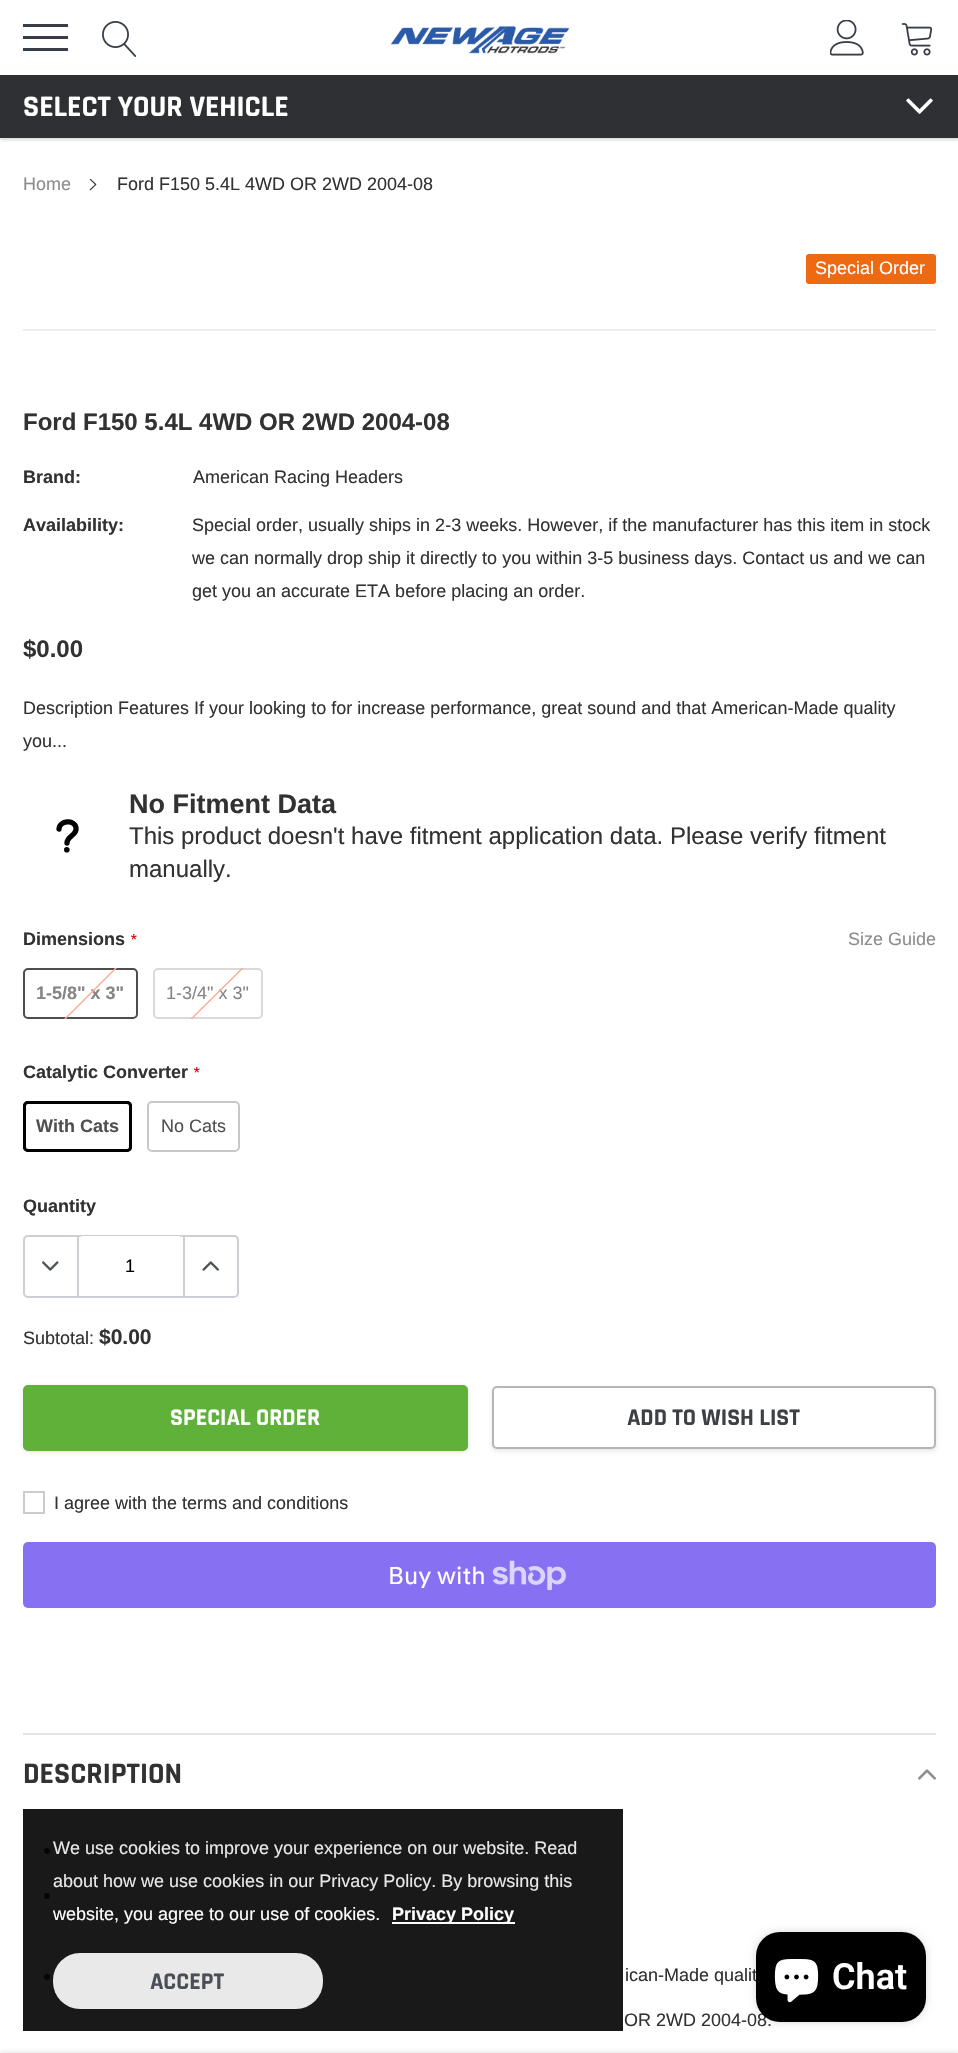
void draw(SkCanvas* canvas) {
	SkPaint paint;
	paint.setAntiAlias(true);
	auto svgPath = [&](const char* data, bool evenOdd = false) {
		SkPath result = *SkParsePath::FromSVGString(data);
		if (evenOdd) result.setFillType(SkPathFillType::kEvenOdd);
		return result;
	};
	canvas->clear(0xffffffff);
	canvas->save();
	canvas->clipRect(SkRect::MakeXYWH(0, 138, 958, 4));
	paint.setColor(0x26000000);
	paint.setMaskFilter(SkMaskFilter::MakeBlur(kNormal_SkBlurStyle, 1.5));
	canvas->drawRect(SkRect::MakeXYWH(0, 2, 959, 138), paint);
	paint.setMaskFilter(nullptr);
	canvas->restore();
	paint.setColor(0xff383e47);
	canvas->drawRect(SkRect::MakeXYWH(23, 36, 45, 3), paint);
	canvas->drawRect(SkRect::MakeXYWH(23, 24, 45, 3), paint);
	canvas->drawRect(SkRect::MakeXYWH(23, 48, 45, 3), paint);
	canvas->drawImageRect(SkImages::DeferredFromEncodedData(SkData::MakeFromFileName("img1.png")), SkRect::MakeXYWH(102, 21, 35, 36), SkSamplingOptions());
	canvas->drawImageRect(SkImages::DeferredFromEncodedData(SkData::MakeFromFileName("img2.png")), SkRect::MakeXYWH(390, 26, 180, 28), SkSamplingOptions());
	canvas->drawImageRect(SkImages::DeferredFromEncodedData(SkData::MakeFromFileName("img3.png")), SkRect::MakeXYWH(830, 20, 34, 36), SkSamplingOptions());
	canvas->drawImageRect(SkImages::DeferredFromEncodedData(SkData::MakeFromFileName("img4.png")), SkRect::MakeXYWH(901, 23, 32, 33), SkSamplingOptions());
	paint.setColor(0xff2e3034);
	canvas->drawRect(SkRect::MakeXYWH(0, 75, 958, 63), paint);
	SkFont f1(fontMgr->matchFamilyStyle("Rajdhani", SkFontStyle::Bold()), 30);
	f1.setSubpixel(true);
	paint.setColor(0xffffffff);
	canvas->drawString("SELECT YOUR VEHICLE", 23, 116, f1, paint);
	canvas->drawImageRect(SkImages::DeferredFromEncodedData(SkData::MakeFromFileName("img5.png")), SkRect::MakeXYWH(906, 98, 27, 16), SkSamplingOptions());
	SkFont f2(fontMgr->matchFamilyStyle("Arimo", SkFontStyle::Normal()), 18);
	f2.setSubpixel(true);
	paint.setColor(0xff8c8c8c);
	canvas->drawString("Home", 23, 190, f2, paint);
	canvas->drawImageRect(SkImages::DeferredFromEncodedData(SkData::MakeFromFileName("img6.png")), SkRect::MakeXYWH(89, 179, 8, 12), SkSamplingOptions());
	paint.setColor(0xff323232);
	canvas->drawString("Ford F150 5.4L 4WD OR 2WD 2004-08", 117, 190, f2, paint);
	paint.setColor(0xffed6912);
	canvas->drawRoundRect(SkRect::MakeXYWH(806, 254, 130, 30), 3, 3, paint);
	paint.setColor(0xffffffff);
	canvas->drawString("Special Order", 815, 274, f2, paint);
	paint.setColor(0xffeeeeee);
	canvas->drawRect(SkRect::MakeXYWH(23, 329, 913, 2), paint);
	SkFont f3(fontMgr->matchFamilyStyle("Arimo", SkFontStyle::Bold()), 24);
	f3.setSubpixel(true);
	paint.setColor(0xff323232);
	canvas->drawString("Ford F150 5.4L 4WD OR 2WD 2004-08", 23, 430, f3, paint);
	SkFont f4(fontMgr->matchFamilyStyle("Arimo", SkFontStyle::Bold()), 18);
	f4.setSubpixel(true);
	canvas->drawString("Brand:", 23, 483, f4, paint);
	canvas->drawString("American Racing Headers", 193, 483, f2, paint);
	canvas->drawString("Availability:", 23, 531, f4, paint);
	canvas->drawString("Special order, usually ships in 2-3 weeks. However, if the manufacturer has this item in stock", 192, 531, f2, paint);
	canvas->drawString("we can normally drop ship it directly to you within 3-5 business days. Contact us and we can", 192, 564, f2, paint);
	canvas->drawString("get you an accurate ETA before placing an order.", 192, 597, f2, paint);
	canvas->drawString("$0.00", 23, 657, f3, paint);
	canvas->drawString("Description Features If your looking to for increase performance, great sound and that American-Made quality", 23, 714, f2, paint);
	canvas->drawString("you...", 23, 747, f2, paint);
	paint.setStroke(true);
	paint.setStrokeWidth(5.3);
	paint.setStrokeCap(SkPaint::kRound_Cap);
	paint.setColor(0xff000000);
	canvas->drawPath(svgPath("M59 829C59.5 820.5 74 819 76 827.5C77.5 835.5 67 835.5 67 843"), paint);
	paint.setStroke(false);
	canvas->drawCircle(66.8, 849.7, 2.8, paint);
	SkFont f5(fontMgr->matchFamilyStyle("Arimo", SkFontStyle::Bold()), 27);
	f5.setSubpixel(true);
	paint.setColor(0xff323232);
	canvas->drawString("No Fitment Data", 129, 813, f5, paint);
	SkFont f6(fontMgr->matchFamilyStyle("Arimo", SkFontStyle::Normal()), 24);
	f6.setSubpixel(true);
	canvas->drawString("This product doesn't have fitment application data. Please verify fitment", 129, 844, f6, paint);
	canvas->drawString("manually.", 129, 877, f6, paint);
	canvas->drawString("Dimensions", 23, 945, f4, paint);
	SkFont f7(fontMgr->matchFamilyStyle("Arimo", SkFontStyle::Italic()), 16);
	f7.setSubpixel(true);
	paint.setColor(0xffd20000);
	canvas->drawString("*", 130, 945, f7, paint);
	paint.setStroke(true);
	paint.setStrokeWidth(2);
	paint.setStrokeCap(SkPaint::kButt_Cap);
	paint.setColor(0xff4d4d4d);
	canvas->drawRoundRect(SkRect::MakeXYWH(24, 969, 113, 49), 4, 4, paint);
	paint.setStroke(false);
	paint.setColor(0xff858585);
	canvas->drawString("1-5/8\" x 3\"", 36, 999, f4, paint);
	canvas->save();
	canvas->clipRect(SkRect::MakeXYWH(23, 968, 115, 51));
	paint.setColor(0xfff9ac92);
	canvas->drawPath(svgPath("M35 1048L148 935L149 936L36 1049Z"), paint);
	canvas->restore();
	paint.setStroke(true);
	paint.setColor(0xffd9d9d9);
	canvas->drawRoundRect(SkRect::MakeXYWH(154, 969, 108, 49), 4, 4, paint);
	paint.setStroke(false);
	paint.setColor(0xff858585);
	canvas->drawString("1-3/4\" x 3\"", 166, 999, f2, paint);
	canvas->save();
	canvas->clipRect(SkRect::MakeXYWH(153, 968, 110, 51));
	paint.setColor(0xfff9ac92);
	canvas->drawPath(svgPath("M164 1045L272 938L273 939L165 1046Z"), paint);
	canvas->restore();
	paint.setColor(0xff8c8c8c);
	canvas->drawString("Size Guide", 848, 945, f2, paint);
	paint.setColor(0xff323232);
	canvas->drawString("Catalytic Converter", 23, 1078, f4, paint);
	paint.setColor(0xffd20000);
	canvas->drawString("*", 193, 1078, f7, paint);
	paint.setStroke(true);
	paint.setColor(0xff000000);
	canvas->drawRoundRect(SkRect::MakeXYWH(24, 1102, 107, 49), 4, 4, paint);
	paint.setStrokeWidth(3);
	canvas->drawRoundRect(SkRect::MakeXYWH(24.5, 1102.5, 106, 48), 3.5, 3.5, paint);
	paint.setStroke(false);
	paint.setColor(0xff505050);
	canvas->drawString("With Cats", 36, 1132, f4, paint);
	paint.setStroke(true);
	paint.setStrokeWidth(2);
	paint.setColor(0xffc8c8c8);
	canvas->drawRoundRect(SkRect::MakeXYWH(148, 1102, 91, 49), 4, 4, paint);
	paint.setStroke(false);
	paint.setColor(0xff505050);
	canvas->drawString("No Cats", 161, 1132, f2, paint);
	paint.setColor(0xff323232);
	canvas->drawString("Quantity", 23, 1212, f4, paint);
	paint.setStroke(true);
	paint.setColor(0xffcccfd6);
	canvas->drawRoundRect(SkRect::MakeXYWH(24, 1236, 214, 61), 4, 4, paint);
	paint.setStroke(false);
	paint.setColor(0xffffffff);
	canvas->drawRoundRect(SkRect::MakeXYWH(78, 1236, 105, 60), 5, 5, paint);
	paint.setColor(0xffcccfd6);
	canvas->drawRect(SkRect::MakeXYWH(77, 1236, 2, 60), paint);
	canvas->drawImageRect(SkImages::DeferredFromEncodedData(SkData::MakeFromFileName("img7.png")), SkRect::MakeXYWH(42, 1261, 17, 10), SkSamplingOptions());
	paint.setColor(0xff000000);
	canvas->drawString("1", 125, 1272, f2, paint);
	paint.setColor(0xffcccfd6);
	canvas->drawRect(SkRect::MakeXYWH(183, 1236, 2, 60), paint);
	canvas->drawImageRect(SkImages::DeferredFromEncodedData(SkData::MakeFromFileName("img8.png")), SkRect::MakeXYWH(202, 1261, 17, 10), SkSamplingOptions());
	paint.setColor(0xff323232);
	canvas->drawString("Subtotal:", 23, 1344, f2, paint);
	SkFont f8(fontMgr->matchFamilyStyle("Arimo", SkFontStyle::Bold()), 21);
	f8.setSubpixel(true);
	canvas->drawString("$0.00", 99, 1344, f8, paint);
	paint.setColor(0x1a000000);
	paint.setMaskFilter(SkMaskFilter::MakeBlur(kNormal_SkBlurStyle, 2));
	canvas->drawRoundRect(SkRect::MakeXYWH(23, 1386, 445, 66), 5, 5, paint);
	paint.setMaskFilter(nullptr);
	paint.setColor(0xff5fb139);
	canvas->drawRoundRect(SkRect::MakeXYWH(24, 1386, 443, 64), 4, 4, paint);
	paint.setStroke(true);
	canvas->drawRoundRect(SkRect::MakeXYWH(24, 1386, 443, 64), 4, 4, paint);
	SkFont f9(fontMgr->matchFamilyStyle("Rajdhani", SkFontStyle::Bold()), 24);
	f9.setSubpixel(true);
	paint.setStroke(false);
	paint.setColor(0xffffffff);
	canvas->drawString("SPECIAL ORDER", 170, 1425, f9, paint);
	paint.setColor(0x1a000000);
	paint.setMaskFilter(SkMaskFilter::MakeBlur(kNormal_SkBlurStyle, 2));
	canvas->drawRoundRect(SkRect::MakeXYWH(492, 1388, 444, 63), 5, 5, paint);
	paint.setMaskFilter(nullptr);
	paint.setColor(0xffffffff);
	canvas->drawRoundRect(SkRect::MakeXYWH(493, 1387, 442, 61), 4, 4, paint);
	paint.setStroke(true);
	paint.setColor(0xffb6b6b6);
	canvas->drawRoundRect(SkRect::MakeXYWH(493, 1387, 442, 61), 4, 4, paint);
	paint.setStroke(false);
	paint.setColor(0xff3d4044);
	canvas->drawString("ADD TO WISH LIST", 627, 1425, f9, paint);
	paint.setStroke(true);
	paint.setColor(0xffcccccc);
	canvas->drawRect(SkRect::MakeXYWH(24, 1492, 20, 21), paint);
	paint.setStroke(false);
	paint.setColor(0xff323232);
	canvas->drawString("I agree with the terms and conditions", 54, 1509, f2, paint);
	paint.setColor(0xff8770f1);
	canvas->drawRoundRect(SkRect::MakeXYWH(23, 1542, 913, 66), 5, 5, paint);
	SkFont f10(fontMgr->matchFamilyStyle("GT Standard", SkFontStyle::Normal()), 24);
	f10.setSubpixel(true);
	paint.setColor(0xffffffff);
	canvas->drawString("Buy with", 388, 1584, f10, paint);
	canvas->drawImageRect(SkImages::DeferredFromEncodedData(SkData::MakeFromFileName("img9.png")), SkRect::MakeXYWH(492, 1560, 74, 30), SkSamplingOptions());
	paint.setColor(0x33000000);
	paint.setMaskFilter(SkMaskFilter::MakeBlur(kNormal_SkBlurStyle, 3));
	canvas->drawRect(SkRect::MakeXYWH(0, 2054, 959, 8), paint);
	paint.setMaskFilter(nullptr);
	paint.setColor(0xffe2e4e8);
	canvas->drawRect(SkRect::MakeXYWH(23, 1733, 913, 2), paint);
	paint.setColor(0xff323232);
	canvas->drawString("DESCRIPTION", 23, 1783, f1, paint);
	canvas->drawImageRect(SkImages::DeferredFromEncodedData(SkData::MakeFromFileName("img10.png")), SkRect::MakeXYWH(918, 1769, 18, 11), SkSamplingOptions());
	canvas->drawCircle(47, 1851, 3, paint);
	canvas->drawCircle(47, 1896, 3, paint);
	canvas->drawCircle(47, 1977, 3, paint);
	canvas->drawString("ican-Made qualit", 625, 1981, f2, paint);
	canvas->drawString("OR 2WD 2004-08.", 624, 2026, f2, paint);
	paint.setColor(0xe6000000);
	canvas->drawRect(SkRect::MakeXYWH(23, 1809, 600, 222), paint);
	paint.setColor(0xffe8e8e8);
	canvas->drawString("We use cookies to improve your experience on our website. Read", 53, 1854, f2, paint);
	canvas->drawString("about how we use cookies in our Privacy Policy. By browsing this", 53, 1887, f2, paint);
	paint.setColor(0xffffffff);
	canvas->drawString("website, you agree to our use of cookies.", 53, 1920, f2, paint);
	canvas->drawRect(SkRect::MakeXYWH(392, 1922, 123, 2), paint);
	canvas->drawString("Privacy Policy", 392, 1920, f4, paint);
	paint.setColor(0xe6ffffff);
	canvas->drawRoundRect(SkRect::MakeXYWH(53, 1953, 270, 56), 27, 27, paint);
	paint.setColor(0xff4a4f57);
	canvas->drawString("ACCEPT", 150, 1989, f9, paint);
	paint.setColor(0x26000000);
	paint.setMaskFilter(SkMaskFilter::MakeBlur(kNormal_SkBlurStyle, 4));
	canvas->drawRoundRect(SkRect::MakeXYWH(756, 1932, 170, 90), 24, 24, paint);
	paint.setMaskFilter(nullptr);
	paint.setColor(0xff000000);
	canvas->drawRoundRect(SkRect::MakeXYWH(756, 1932, 170, 90), 24, 24, paint);
	canvas->drawImageRect(SkImages::DeferredFromEncodedData(SkData::MakeFromFileName("img11.png")), SkRect::MakeXYWH(774, 1959, 45, 44), SkSamplingOptions());
	SkFont f11(fontMgr->matchFamilyStyle("Roboto", SkFontStyle(600, SkFontStyle::kNormal_Width, SkFontStyle::kUpright_Slant)), 36);
	f11.setSubpixel(true);
	paint.setColor(0xffffffff);
	canvas->drawString("Chat", 832, 1989, f11, paint);
}
